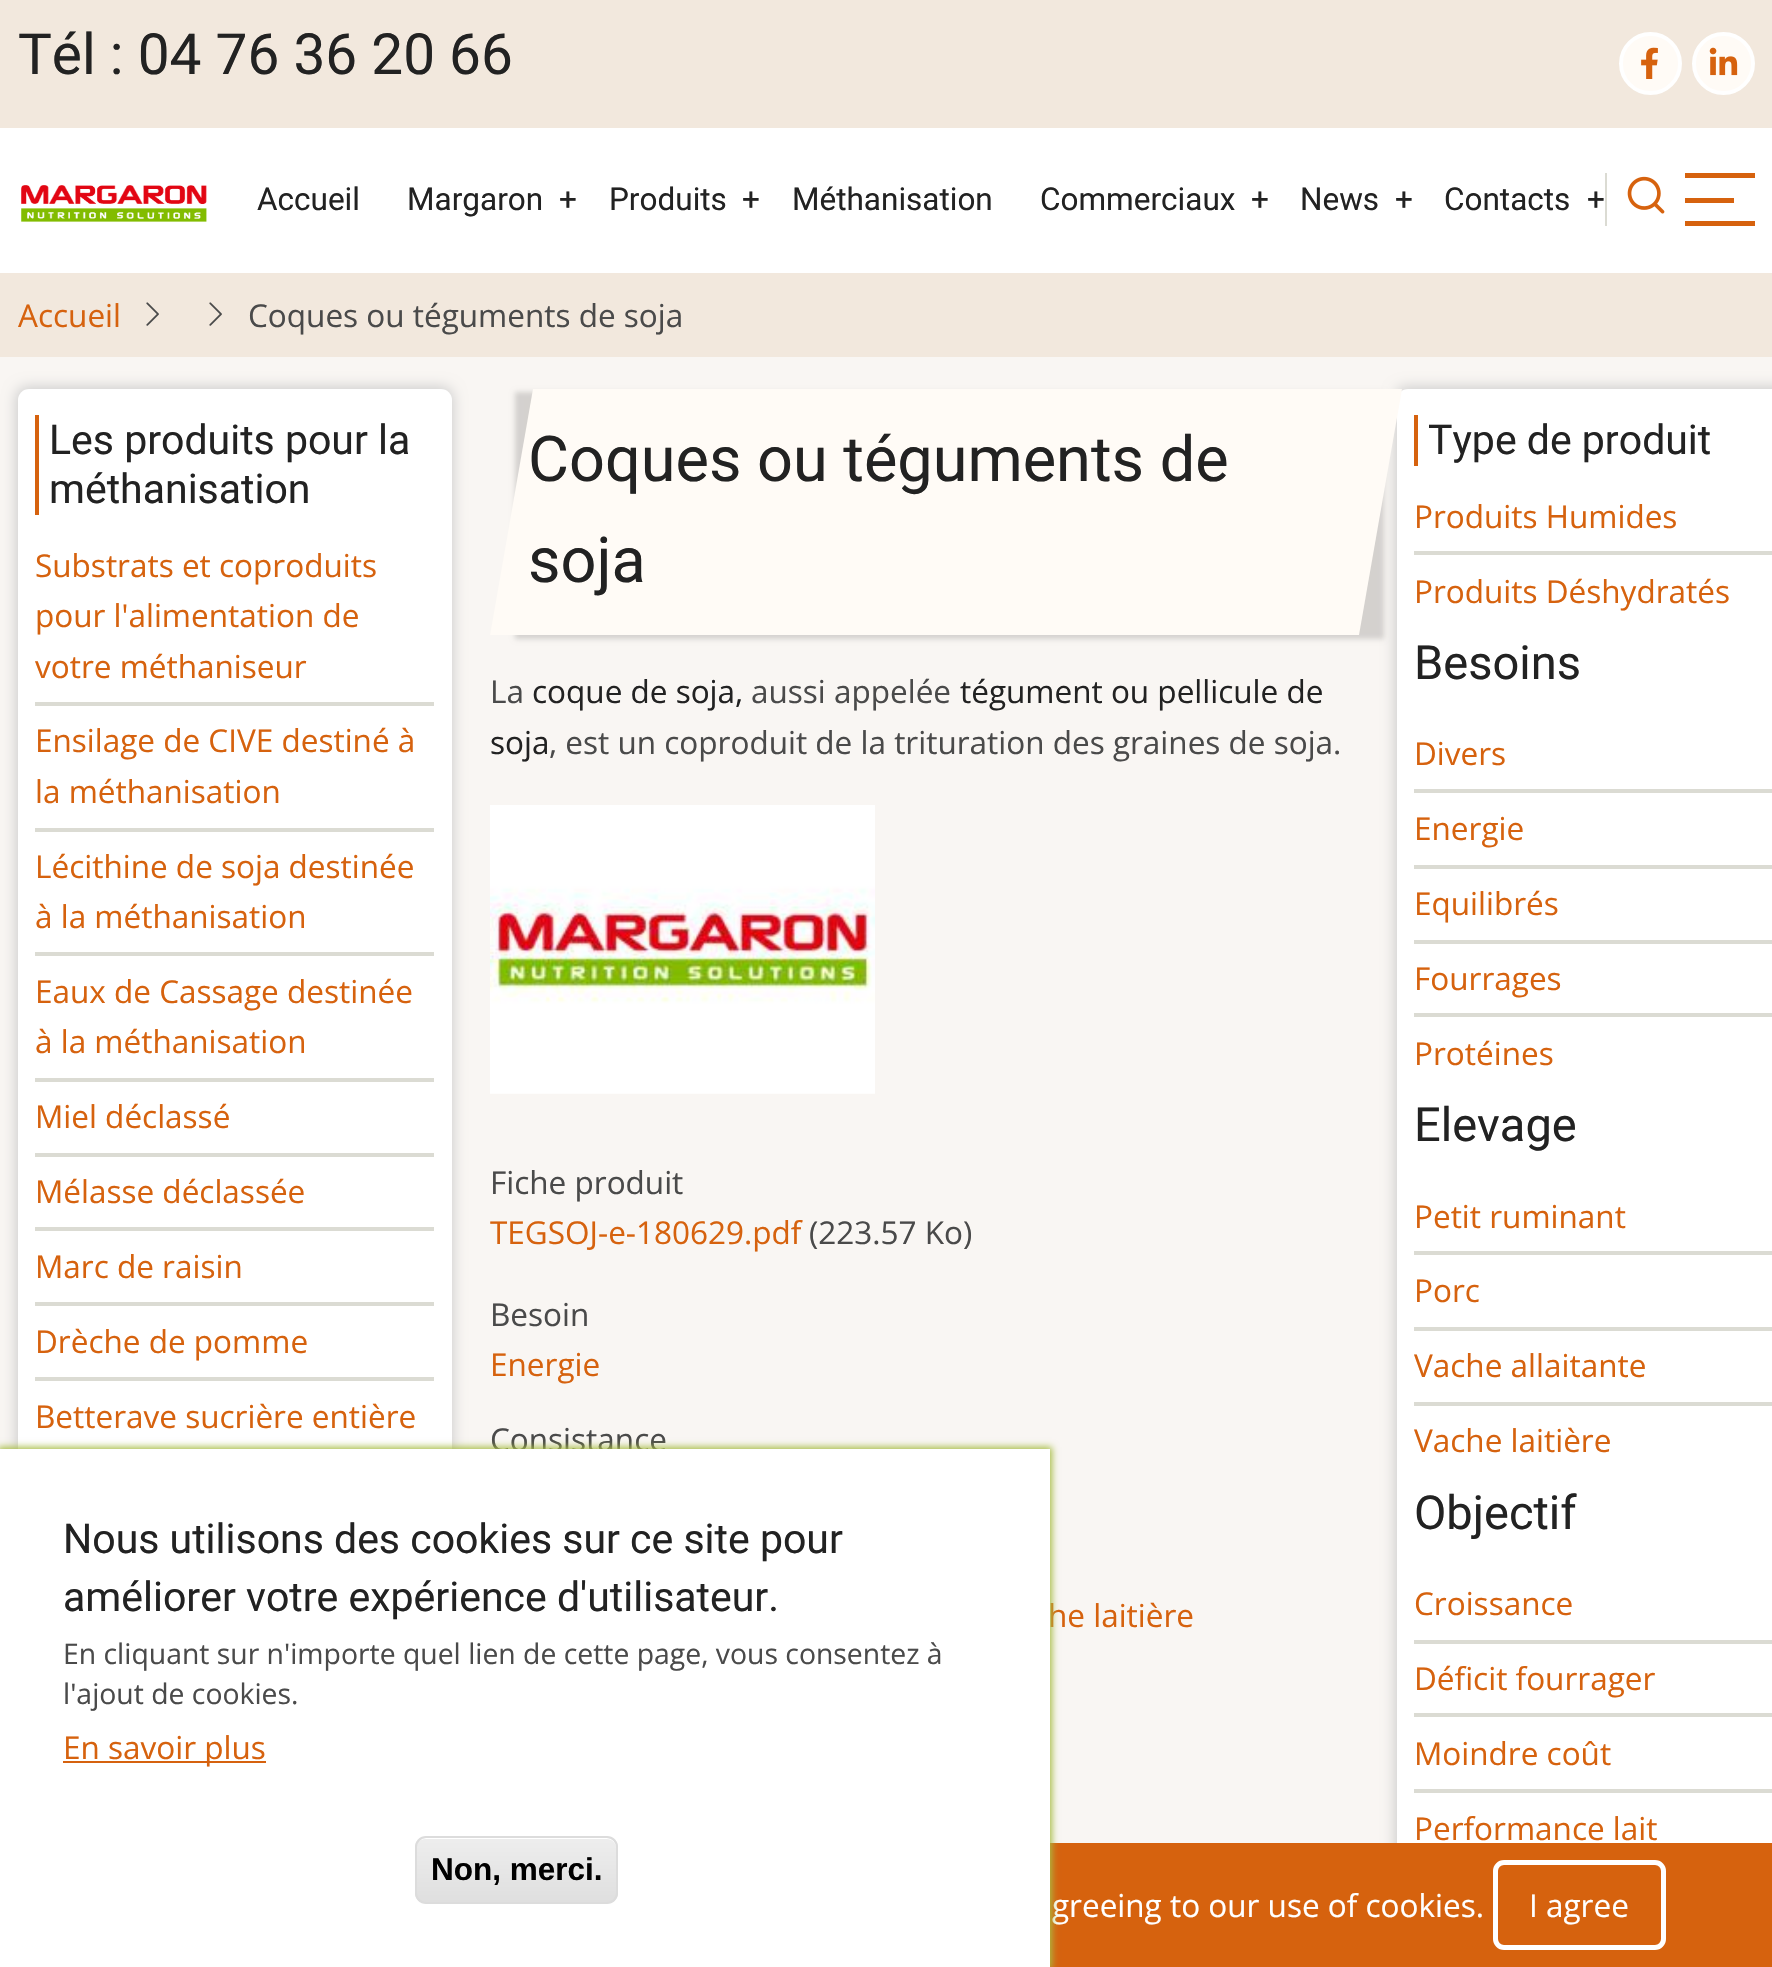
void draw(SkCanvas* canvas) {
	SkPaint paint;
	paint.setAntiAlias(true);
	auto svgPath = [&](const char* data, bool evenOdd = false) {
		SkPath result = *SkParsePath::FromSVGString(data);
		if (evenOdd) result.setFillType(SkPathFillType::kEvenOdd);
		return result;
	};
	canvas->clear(0xfff2e8dd);
	SkFont f1(fontMgr->matchFamilyStyle("Roboto", SkFontStyle::Normal()), 56.75);
	f1.setSubpixel(true);
	paint.setColor(0xff222222);
	canvas->drawString("Tél : 04 76 36 20 66", 18, 74, f1, paint);
	paint.setColor(0xfffffbf6);
	canvas->drawCircle(1650.5, 63.5, 29.5, paint);
	paint.setStroke(true);
	paint.setStrokeWidth(4);
	paint.setColor(0xffffffff);
	canvas->drawCircle(1650.5, 63.5, 29.5, paint);
	canvas->drawImageRect(SkImages::DeferredFromEncodedData(SkData::MakeFromFileName("img1.png")), SkRect::MakeXYWH(1641, 47, 17, 32), SkSamplingOptions());
	paint.setStroke(false);
	paint.setColor(0xfffffbf6);
	canvas->drawCircle(1723.5, 63.5, 29.5, paint);
	paint.setStroke(true);
	paint.setColor(0xffffffff);
	canvas->drawCircle(1723.5, 63.5, 29.5, paint);
	canvas->drawImageRect(SkImages::DeferredFromEncodedData(SkData::MakeFromFileName("img2.png")), SkRect::MakeXYWH(1709, 47, 29, 29), SkSamplingOptions());
	paint.setStroke(false);
	canvas->drawRect(SkRect::MakeXYWH(0, 128, 1772, 145), paint);
	canvas->drawImageRect(SkImages::DeferredFromEncodedData(SkData::MakeFromFileName("img3.png")), SkRect::MakeXYWH(21, 185, 186, 37), SkSamplingOptions());
	SkFont f2(fontMgr->matchFamilyStyle("Roboto", SkFontStyle::Normal()), 31.5);
	f2.setSubpixel(true);
	paint.setColor(0xff222222);
	canvas->drawString("Accueil", 257, 210, f2, paint);
	canvas->drawString("Margaron", 407, 210, f2, paint);
	canvas->drawString("+", 559, 210, f2, paint);
	canvas->drawString("Produits", 609, 210, f2, paint);
	canvas->drawString("+", 742, 210, f2, paint);
	canvas->drawString("Méthanisation", 792, 210, f2, paint);
	canvas->drawString("Commerciaux", 1040, 210, f2, paint);
	canvas->drawString("+", 1251, 210, f2, paint);
	canvas->drawString("News", 1300, 210, f2, paint);
	canvas->drawString("+", 1395, 210, f2, paint);
	canvas->drawString("Contacts", 1444, 210, f2, paint);
	canvas->drawString("+", 1587, 210, f2, paint);
	paint.setColor(0xffdbdbd3);
	canvas->drawRect(SkRect::MakeXYWH(1605, 173, 2, 53), paint);
	canvas->drawImageRect(SkImages::DeferredFromEncodedData(SkData::MakeFromFileName("img4.png")), SkRect::MakeXYWH(1627, 176, 38, 38), SkSamplingOptions());
	paint.setColor(0xffd6620e);
	canvas->drawRect(SkRect::MakeXYWH(1685, 173, 70, 5), paint);
	canvas->drawRect(SkRect::MakeXYWH(1685, 198, 49, 5), paint);
	canvas->drawRect(SkRect::MakeXYWH(1685, 221, 70, 5), paint);
	SkFont f3(fontMgr->matchFamilyStyle("Open Sans", SkFontStyle::Normal()), 31.5);
	f3.setSubpixel(true);
	canvas->drawString("Accueil", 18, 327, f3, paint);
	canvas->drawImageRect(SkImages::DeferredFromEncodedData(SkData::MakeFromFileName("img5.png")), SkRect::MakeXYWH(146, 302, 13, 24), SkSamplingOptions());
	canvas->drawImageRect(SkImages::DeferredFromEncodedData(SkData::MakeFromFileName("img5.png")), SkRect::MakeXYWH(209, 302, 13, 24), SkSamplingOptions());
	paint.setColor(0xff4a4a4a);
	canvas->drawString("Coques ou téguments de soja", 248, 327, f3, paint);
	paint.setColor(0xfff9f6f3);
	canvas->drawRect(SkRect::MakeXYWH(0, 357, 1772, 1486), paint);
	paint.setColor(0xffcccccc);
	paint.setMaskFilter(SkMaskFilter::MakeBlur(kNormal_SkBlurStyle, 7));
	canvas->drawRoundRect(SkRect::MakeXYWH(16, 387, 437, 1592), 12, 12, paint);
	paint.setMaskFilter(nullptr);
	paint.setColor(0xffffffff);
	canvas->drawRoundRect(SkRect::MakeXYWH(18, 389, 434, 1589), 11, 11, paint);
	paint.setColor(0xffd6620e);
	canvas->drawRect(SkRect::MakeXYWH(35, 415, 4, 100), paint);
	SkFont f4(fontMgr->matchFamilyStyle("Roboto", SkFontStyle::Normal()), 41);
	f4.setSubpixel(true);
	paint.setColor(0xff222222);
	canvas->drawString("Les produits pour la", 49, 454, f4, paint);
	canvas->drawString("méthanisation", 49, 503, f4, paint);
	paint.setColor(0xffdbdbd3);
	canvas->drawRect(SkRect::MakeXYWH(35, 702, 399, 4), paint);
	paint.setColor(0xffd6620e);
	canvas->drawString("Substrats et coproduits", 35, 577, f3, paint);
	canvas->drawString("pour l'alimentation de", 35, 627, f3, paint);
	canvas->drawString("votre méthaniseur", 35, 678, f3, paint);
	paint.setColor(0xffdbdbd3);
	canvas->drawRect(SkRect::MakeXYWH(35, 828, 399, 4), paint);
	paint.setColor(0xffd6620e);
	canvas->drawString("Ensilage de CIVE destiné à", 35, 752, f3, paint);
	canvas->drawString("la méthanisation", 35, 803, f3, paint);
	paint.setColor(0xffdbdbd3);
	canvas->drawRect(SkRect::MakeXYWH(35, 952, 399, 4), paint);
	paint.setColor(0xffd6620e);
	canvas->drawString("Lécithine de soja destinée", 35, 878, f3, paint);
	canvas->drawString("à la méthanisation", 35, 928, f3, paint);
	paint.setColor(0xffdbdbd3);
	canvas->drawRect(SkRect::MakeXYWH(35, 1078, 399, 4), paint);
	paint.setColor(0xffd6620e);
	canvas->drawString("Eaux de Cassage destinée", 35, 1003, f3, paint);
	canvas->drawString("à la méthanisation", 35, 1053, f3, paint);
	paint.setColor(0xffdbdbd3);
	canvas->drawRect(SkRect::MakeXYWH(35, 1153, 399, 4), paint);
	paint.setColor(0xffd6620e);
	canvas->drawString("Miel déclassé", 35, 1128, f3, paint);
	paint.setColor(0xffdbdbd3);
	canvas->drawRect(SkRect::MakeXYWH(35, 1227, 399, 4), paint);
	paint.setColor(0xffd6620e);
	canvas->drawString("Mélasse déclassée", 35, 1203, f3, paint);
	paint.setColor(0xffdbdbd3);
	canvas->drawRect(SkRect::MakeXYWH(35, 1302, 399, 4), paint);
	paint.setColor(0xffd6620e);
	canvas->drawString("Marc de raisin", 35, 1278, f3, paint);
	paint.setColor(0xffdbdbd3);
	canvas->drawRect(SkRect::MakeXYWH(35, 1377, 399, 4), paint);
	paint.setColor(0xffd6620e);
	canvas->drawString("Drèche de pomme", 35, 1353, f3, paint);
	canvas->drawString("Betterave sucrière entière", 35, 1428, f3, paint);
	paint.setColor(0x26000000);
	paint.setMaskFilter(SkMaskFilter::MakeBlur(kNormal_SkBlurStyle, 2.5));
	canvas->drawRect(SkRect::MakeXYWH(515, 392, 869, 247), paint);
	paint.setMaskFilter(nullptr);
	paint.setColor(0xffcccccc);
	paint.setMaskFilter(SkMaskFilter::MakeBlur(kNormal_SkBlurStyle, 7));
	canvas->drawRoundRect(SkRect::MakeXYWH(1395, 387, 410, 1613), 12, 12, paint);
	paint.setMaskFilter(nullptr);
	paint.setColor(0xffffffff);
	canvas->drawRoundRect(SkRect::MakeXYWH(1397, 389, 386, 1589), 11, 11, paint);
	paint.setColor(0xfffffbf6);
	canvas->drawPath(svgPath("M533 389H1402L1359 635H490Z"), paint);
	SkFont f5(fontMgr->matchFamilyStyle("Roboto", SkFontStyle::Normal()), 63);
	f5.setSubpixel(true);
	paint.setColor(0xff222222);
	canvas->drawString("Coques ou téguments de", 528, 481, f5, paint);
	canvas->drawString("soja", 528, 582, f5, paint);
	paint.setColor(0xff4a4a4a);
	canvas->drawString("La", 490, 703, f3, paint);
	paint.setColor(0xff222222);
	canvas->drawString("coque de soja,", 532, 703, f3, paint);
	paint.setColor(0xff4a4a4a);
	canvas->drawString("aussi appelée", 751, 703, f3, paint);
	paint.setColor(0xff222222);
	canvas->drawString("tégument ou pellicule de", 960, 703, f3, paint);
	canvas->drawString("soja", 490, 754, f3, paint);
	paint.setColor(0xff4a4a4a);
	canvas->drawString(", est un coproduit de la trituration des graines de soja.", 549, 754, f3, paint);
	canvas->drawImageRect(SkImages::DeferredFromEncodedData(SkData::MakeFromFileName("img6.png")), SkRect::MakeXYWH(490, 805, 385, 289), SkSamplingOptions());
	canvas->drawString("Fiche produit", 490, 1194, f3, paint);
	paint.setColor(0xffd6620e);
	canvas->drawString("TEGSOJ-e-180629.pdf", 490, 1244, f3, paint);
	paint.setColor(0xff4a4a4a);
	canvas->drawString("(223.57 Ko)", 809, 1244, f3, paint);
	canvas->drawString("Besoin", 490, 1326, f3, paint);
	paint.setColor(0xffd6620e);
	canvas->drawString("Energie", 490, 1376, f3, paint);
	paint.setColor(0xff4a4a4a);
	canvas->drawString("Consistance", 490, 1451, f3, paint);
	paint.setColor(0xffd6620e);
	canvas->drawString("he laitière", 1048, 1627, f3, paint);
	canvas->drawRect(SkRect::MakeXYWH(1414, 415, 4, 51), paint);
	paint.setColor(0xff222222);
	canvas->drawString("Type de produit", 1428, 454, f4, paint);
	paint.setColor(0xffdbdbd3);
	canvas->drawRect(SkRect::MakeXYWH(1414, 551, 358, 4), paint);
	paint.setColor(0xffd6620e);
	canvas->drawString("Produits Humides", 1414, 528, f3, paint);
	canvas->drawString("Produits Déshydratés", 1414, 603, f3, paint);
	SkFont f6(fontMgr->matchFamilyStyle("Roboto", SkFontStyle::Normal()), 47);
	f6.setSubpixel(true);
	paint.setColor(0xff222222);
	canvas->drawString("Besoins", 1414, 679, f6, paint);
	paint.setColor(0xffdbdbd3);
	canvas->drawRect(SkRect::MakeXYWH(1414, 789, 358, 4), paint);
	paint.setColor(0xffd6620e);
	canvas->drawString("Divers", 1414, 765, f3, paint);
	paint.setColor(0xffdbdbd3);
	canvas->drawRect(SkRect::MakeXYWH(1414, 865, 358, 4), paint);
	paint.setColor(0xffd6620e);
	canvas->drawString("Energie", 1414, 840, f3, paint);
	paint.setColor(0xffdbdbd3);
	canvas->drawRect(SkRect::MakeXYWH(1414, 940, 358, 4), paint);
	paint.setColor(0xffd6620e);
	canvas->drawString("Equilibrés", 1414, 915, f3, paint);
	paint.setColor(0xffdbdbd3);
	canvas->drawRect(SkRect::MakeXYWH(1414, 1013, 358, 4), paint);
	paint.setColor(0xffd6620e);
	canvas->drawString("Fourrages", 1414, 990, f3, paint);
	canvas->drawString("Protéines", 1414, 1065, f3, paint);
	paint.setColor(0xff222222);
	canvas->drawString("Elevage", 1414, 1141, f6, paint);
	paint.setColor(0xffdbdbd3);
	canvas->drawRect(SkRect::MakeXYWH(1414, 1251, 358, 4), paint);
	paint.setColor(0xffd6620e);
	canvas->drawString("Petit ruminant", 1414, 1228, f3, paint);
	paint.setColor(0xffdbdbd3);
	canvas->drawRect(SkRect::MakeXYWH(1414, 1327, 358, 4), paint);
	paint.setColor(0xffd6620e);
	canvas->drawString("Porc", 1414, 1302, f3, paint);
	paint.setColor(0xffdbdbd3);
	canvas->drawRect(SkRect::MakeXYWH(1414, 1402, 358, 4), paint);
	paint.setColor(0xffd6620e);
	canvas->drawString("Vache allaitante", 1414, 1377, f3, paint);
	canvas->drawString("Vache laitière", 1414, 1452, f3, paint);
	paint.setColor(0xff222222);
	canvas->drawString("Objectif", 1414, 1529, f6, paint);
	paint.setColor(0xffdbdbd3);
	canvas->drawRect(SkRect::MakeXYWH(1414, 1640, 358, 4), paint);
	paint.setColor(0xffd6620e);
	canvas->drawString("Croissance", 1414, 1615, f3, paint);
	paint.setColor(0xffdbdbd3);
	canvas->drawRect(SkRect::MakeXYWH(1414, 1713, 358, 4), paint);
	paint.setColor(0xffd6620e);
	canvas->drawString("Déficit fourrager", 1414, 1690, f3, paint);
	paint.setColor(0xffdbdbd3);
	canvas->drawRect(SkRect::MakeXYWH(1414, 1789, 358, 4), paint);
	paint.setColor(0xffd6620e);
	canvas->drawString("Moindre coût", 1414, 1765, f3, paint);
	canvas->drawString("Performance lait", 1414, 1840, f3, paint);
	canvas->drawRect(SkRect::MakeXYWH(1050, 1843, 722, 124), paint);
	paint.setColor(0xffffffff);
	canvas->drawString("greeing to our use of cookies.", 1052, 1917, f3, paint);
	paint.setStroke(true);
	paint.setStrokeWidth(5);
	canvas->drawRoundRect(SkRect::MakeXYWH(1495.5, 1862.5, 168, 85), 8.5, 8.5, paint);
	paint.setStroke(false);
	canvas->drawString("I agree", 1529, 1917, f3, paint);
	paint.setColor(0xffa7bd43);
	paint.setMaskFilter(SkMaskFilter::MakeBlur(kNormal_SkBlurStyle, 3.5));
	canvas->drawRect(SkRect::MakeXYWH(-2, 1447, 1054, 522), paint);
	paint.setMaskFilter(nullptr);
	paint.setColor(0xffffffff);
	canvas->drawRect(SkRect::MakeXYWH(0, 1449, 1050, 518), paint);
	paint.setColor(0xff222222);
	canvas->drawString("Nous utilisons des cookies sur ce site pour", 63, 1553, f4, paint);
	canvas->drawString("améliorer votre expérience d'utilisateur.", 63, 1611, f4, paint);
	SkFont f7(fontMgr->matchFamilyStyle("Open Sans", SkFontStyle::Normal()), 28.35);
	f7.setSubpixel(true);
	paint.setColor(0xff4a4a4a);
	canvas->drawString("En cliquant sur n'importe quel lien de cette page, vous consentez à", 63, 1664, f7, paint);
	canvas->drawString("l'ajout de cookies.", 63, 1704, f7, paint);
	paint.setColor(0xffd6620e);
	canvas->drawRect(SkRect::MakeXYWH(63, 1761, 203, 2), paint);
	canvas->drawString("En savoir plus", 63, 1759, f3, paint);
	canvas->save();
	canvas->clipPath(svgPath("M426 1836H607C613 1836 618 1841 618 1847V1893C618 1899 613 1904 607 1904H426C420 1904 415 1899 415 1893V1847C415 1841 420 1836 426 1836Z"), true);
	{
		const SkColor colors[] = {0xffededed, 0xffdfdfdf};
		const float stops[] = {0.05, 1};
		const SkPoint ends[] = {{516, 1838}, {516, 1902}};
		paint.setShader(SkGradientShader::MakeLinear(ends, colors, stops, 2, SkTileMode::kClamp));
		paint.setAlpha(255);
	}
	canvas->drawRect(SkRect::MakeXYWH(415, 1838, 203, 64), paint);
	canvas->restore();
	paint.setShader(nullptr);
	paint.setColor(0xffffffff);
	canvas->drawPath(svgPath("M425 1839H607C612 1839 616 1843 616 1848V1847C616 1842 612 1838 607 1838H426C423 1838 421 1839 419 1841C421 1840 423 1839 425 1839Z"), paint);
	paint.setStroke(true);
	paint.setStrokeWidth(2);
	paint.setColor(0xffdcdcdc);
	canvas->drawRoundRect(SkRect::MakeXYWH(416, 1837, 201, 66), 10, 10, paint);
	SkFont f8(fontMgr->matchFamilyStyle("Liberation Sans", SkFontStyle::Bold()), 31.5);
	f8.setSubpixel(true);
	paint.setStroke(false);
	paint.setColor(0xff000000);
	canvas->drawString("Non, merci.", 431, 1880, f8, paint);
}
